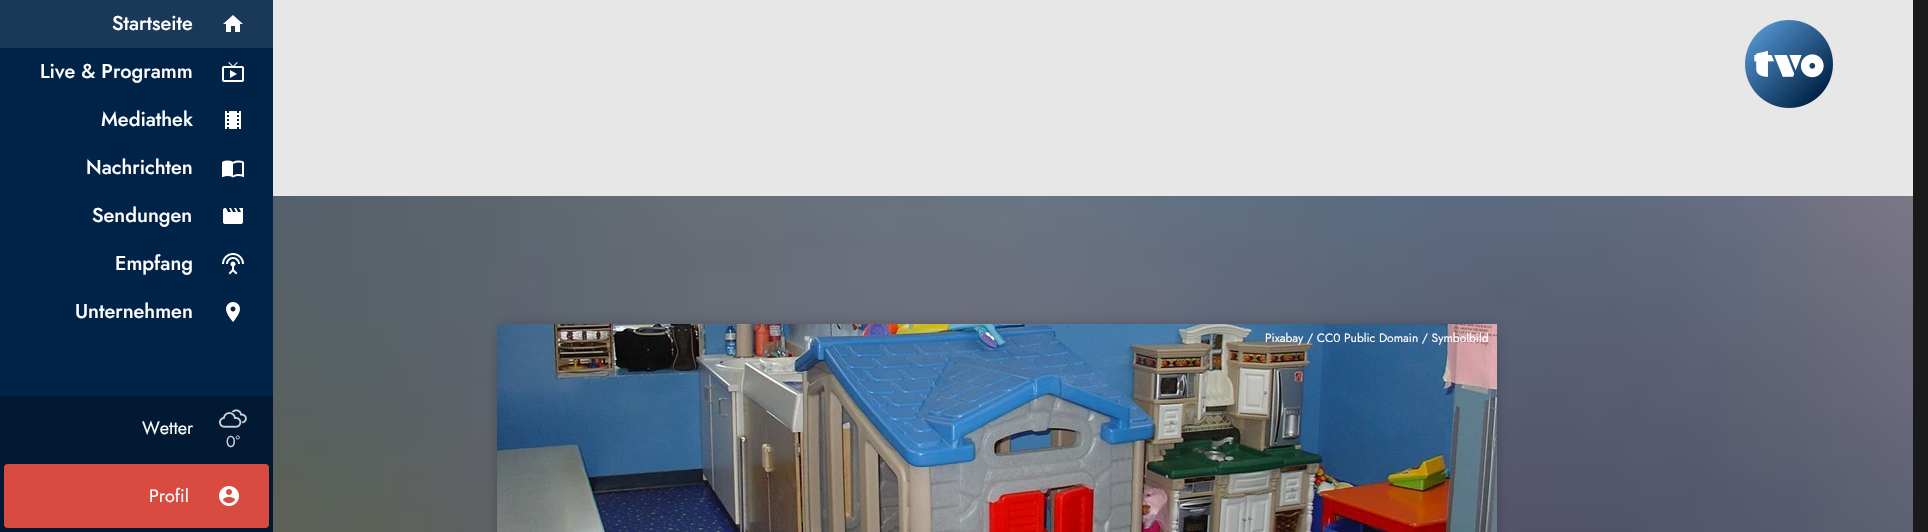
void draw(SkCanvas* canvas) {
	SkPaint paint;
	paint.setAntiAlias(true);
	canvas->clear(0xff1a1a1a);
	paint.setColor(0xff012347);
	canvas->drawRect(SkRect::MakeXYWH(0, 48, 273, 348), paint);
	paint.setColor(0xffe7e7e7);
	canvas->drawRect(SkRect::MakeXYWH(273, 0, 1640, 196), paint);
	canvas->drawImageRect(SkImages::DeferredFromEncodedData(SkData::MakeFromFileName("img11.png")), SkRect::MakeXYWH(273, 196, 1640, 336), SkSamplingOptions());
	paint.setColor(0x66000000);
	paint.setMaskFilter(SkMaskFilter::MakeBlur(kNormal_SkBlurStyle, 7.5));
	canvas->drawRect(SkRect::MakeXYWH(502, 329, 990, 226), paint);
	paint.setMaskFilter(nullptr);
	canvas->drawImageRect(SkImages::DeferredFromEncodedData(SkData::MakeFromFileName("img12.png")), SkRect::MakeXYWH(497, 324, 1000, 208), SkSamplingOptions());
	canvas->save();
	canvas->clipRect(SkRect::MakeXYWH(0, 0, 273, 48));
	paint.setColor(0xff1a3959);
	canvas->drawCircle(233, 24, 336, paint);
	canvas->restore();
	SkFont f1(fontMgr->matchFamilyStyle("Jost", SkFontStyle(500, SkFontStyle::kNormal_Width, SkFontStyle::kUpright_Slant)), 20);
	f1.setSubpixel(true);
	paint.setColor(0xffffffff);
	canvas->drawString("Startseite", 112, 30, f1, paint);
	canvas->drawImageRect(SkImages::DeferredFromEncodedData(SkData::MakeFromFileName("img1.png")), SkRect::MakeXYWH(223, 15, 20, 17), SkSamplingOptions());
	canvas->drawString("Live & Programm", 40, 78, f1, paint);
	canvas->drawImageRect(SkImages::DeferredFromEncodedData(SkData::MakeFromFileName("img2.png")), SkRect::MakeXYWH(222, 62, 22, 20), SkSamplingOptions());
	canvas->drawString("Mediathek", 101, 126, f1, paint);
	canvas->drawImageRect(SkImages::DeferredFromEncodedData(SkData::MakeFromFileName("img3.png")), SkRect::MakeXYWH(225, 111, 16, 18), SkSamplingOptions());
	canvas->drawString("Nachrichten", 86, 174, f1, paint);
	canvas->drawImageRect(SkImages::DeferredFromEncodedData(SkData::MakeFromFileName("img4.png")), SkRect::MakeXYWH(222, 160, 22, 18), SkSamplingOptions());
	canvas->drawString("Sendungen", 92, 222, f1, paint);
	canvas->drawImageRect(SkImages::DeferredFromEncodedData(SkData::MakeFromFileName("img5.png")), SkRect::MakeXYWH(223, 208, 20, 16), SkSamplingOptions());
	canvas->drawString("Empfang", 115, 270, f1, paint);
	canvas->drawImageRect(SkImages::DeferredFromEncodedData(SkData::MakeFromFileName("img6.png")), SkRect::MakeXYWH(222, 253, 22, 22), SkSamplingOptions());
	canvas->drawString("Unternehmen", 75, 318, f1, paint);
	canvas->drawImageRect(SkImages::DeferredFromEncodedData(SkData::MakeFromFileName("img7.png")), SkRect::MakeXYWH(226, 302, 14, 20), SkSamplingOptions());
	paint.setColor(0xff011932);
	canvas->drawRect(SkRect::MakeXYWH(0, 396, 273, 136), paint);
	SkFont f2(fontMgr->matchFamilyStyle("Jost", SkFontStyle::Normal()), 18);
	f2.setSubpixel(true);
	paint.setColor(0xffffffff);
	canvas->drawString("Wetter", 142, 434, f2, paint);
	canvas->drawImageRect(SkImages::DeferredFromEncodedData(SkData::MakeFromFileName("img8.png")), SkRect::MakeXYWH(219, 409, 28, 19), SkSamplingOptions());
	SkFont f3(fontMgr->matchFamilyStyle("Jost", SkFontStyle::Normal()), 16);
	f3.setSubpixel(true);
	paint.setColor(0xffccd1d6);
	canvas->drawString("0°", 226, 447, f3, paint);
	paint.setColor(0xffd94b41);
	canvas->drawRoundRect(SkRect::MakeXYWH(4, 464, 265, 64), 4, 4, paint);
	paint.setColor(0xffffffff);
	canvas->drawString("Profil", 149, 502, f2, paint);
	canvas->drawImageRect(SkImages::DeferredFromEncodedData(SkData::MakeFromFileName("img9.png")), SkRect::MakeXYWH(219, 486, 20, 20), SkSamplingOptions());
	canvas->drawImageRect(SkImages::DeferredFromEncodedData(SkData::MakeFromFileName("img10.png")), SkRect::MakeXYWH(1745, 20, 88, 88), SkSamplingOptions());
	SkFont f4(fontMgr->matchFamilyStyle("Jost", SkFontStyle::Normal()), 12);
	f4.setSubpixel(true);
	canvas->drawString("Pixabay / CC0 Public Domain / Symbolbild", 1265, 342, f4, paint);
}
